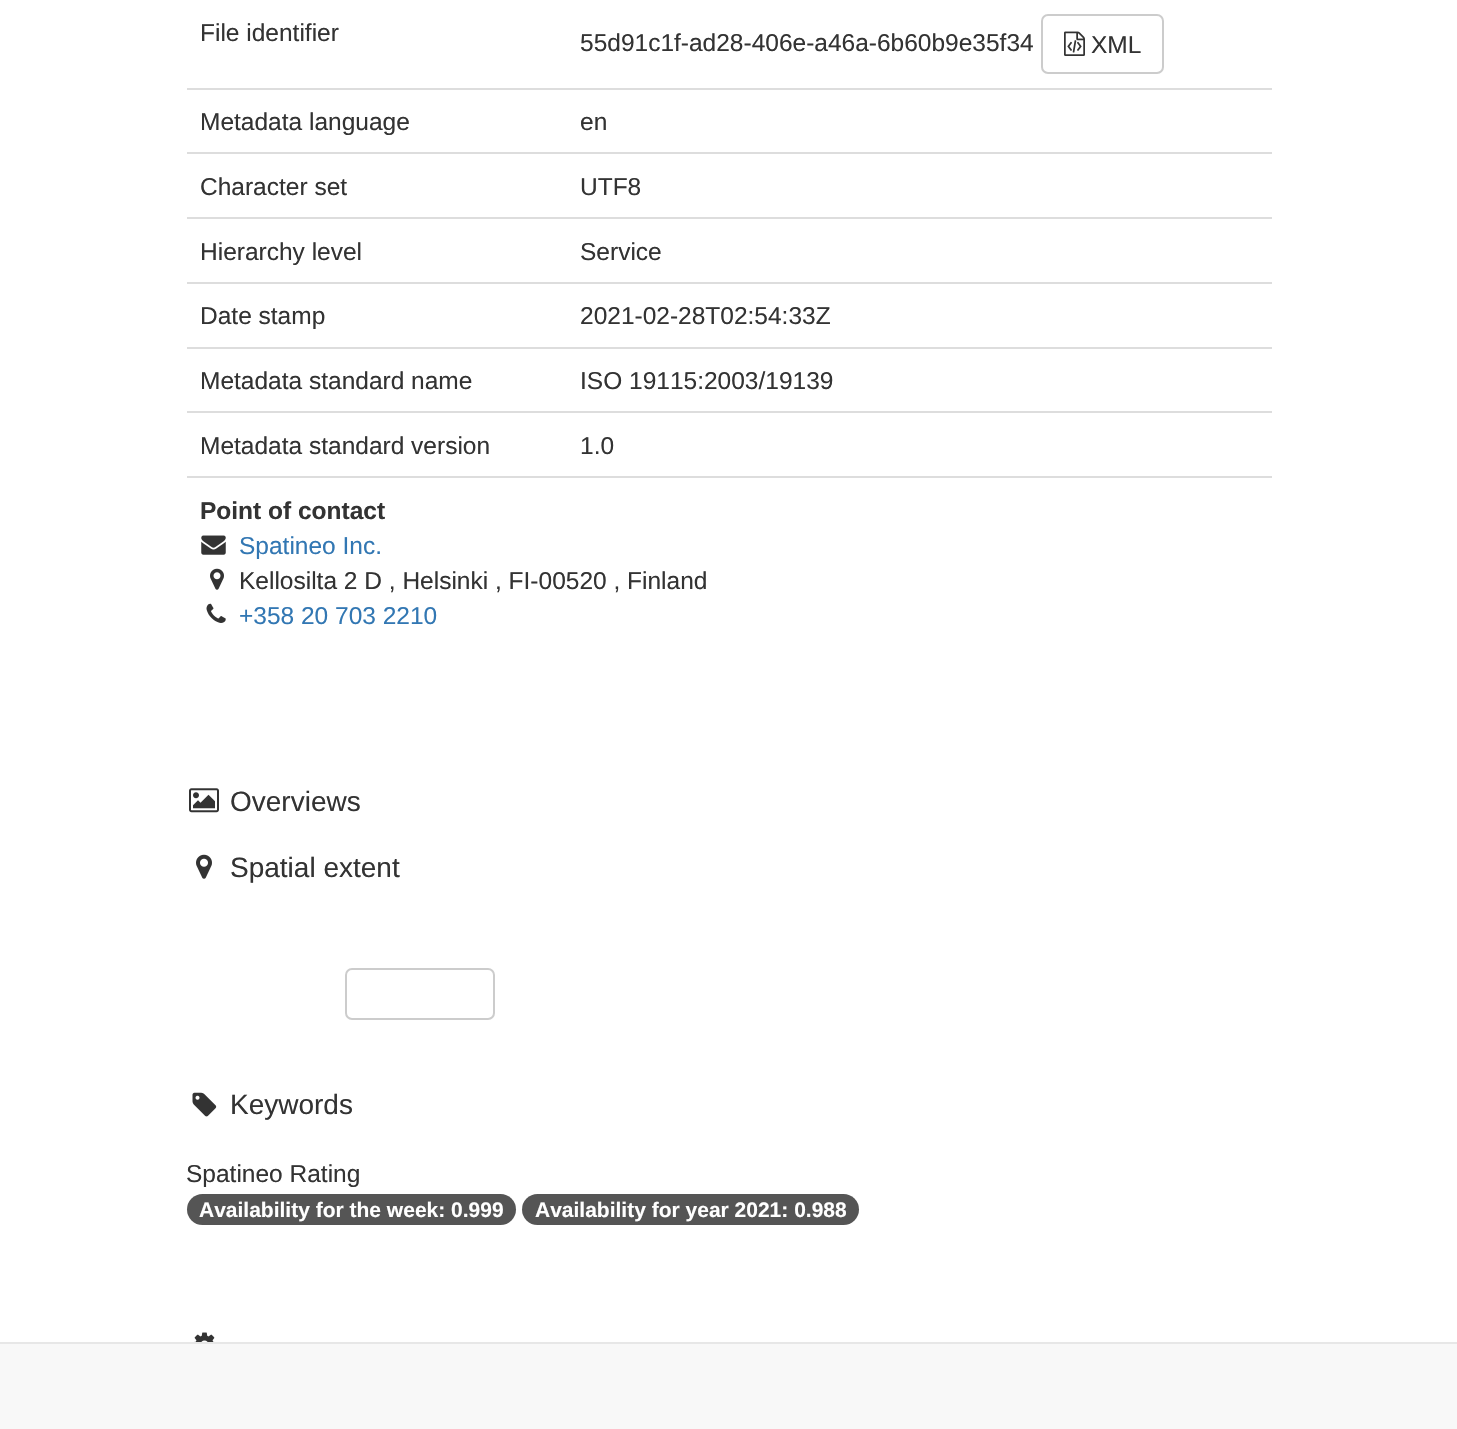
void draw(SkCanvas* canvas) {
	SkPaint paint;
	paint.setAntiAlias(true);
	canvas->clear(0xffffffff);
	SkFont f1(fontMgr->matchFamilyStyle("Liberation Sans", SkFontStyle::Normal()), 24.5);
	f1.setSubpixel(true);
	paint.setColor(0xff333333);
	canvas->drawString("File identifier", 200, 41, f1, paint);
	canvas->drawString("55d91c1f-ad28-406e-a46a-6b60b9e35f34", 580, 51, f1, paint);
	paint.setStroke(true);
	paint.setStrokeWidth(2);
	paint.setColor(0xffcccccc);
	canvas->drawRoundRect(SkRect::MakeXYWH(1042, 15, 121, 58), 6, 6, paint);
	canvas->drawImageRect(SkImages::DeferredFromEncodedData(SkData::MakeFromFileName("img1.png")), SkRect::MakeXYWH(1064, 31, 21, 25), SkSamplingOptions());
	paint.setStroke(false);
	paint.setColor(0xff333333);
	canvas->drawString("XML", 1091, 53, f1, paint);
	paint.setColor(0xffdddddd);
	canvas->drawRect(SkRect::MakeXYWH(187, 88, 1085, 2), paint);
	paint.setColor(0xff333333);
	canvas->drawString("Metadata language", 200, 130, f1, paint);
	canvas->drawString("en", 580, 130, f1, paint);
	paint.setColor(0xffdddddd);
	canvas->drawRect(SkRect::MakeXYWH(187, 152, 1085, 2), paint);
	paint.setColor(0xff333333);
	canvas->drawString("Character set", 200, 195, f1, paint);
	canvas->drawString("UTF8", 580, 195, f1, paint);
	paint.setColor(0xffdddddd);
	canvas->drawRect(SkRect::MakeXYWH(187, 217, 1085, 2), paint);
	paint.setColor(0xff333333);
	canvas->drawString("Hierarchy level", 200, 260, f1, paint);
	canvas->drawString("Service", 580, 260, f1, paint);
	paint.setColor(0xffdddddd);
	canvas->drawRect(SkRect::MakeXYWH(187, 282, 1085, 2), paint);
	paint.setColor(0xff333333);
	canvas->drawString("Date stamp", 200, 324, f1, paint);
	canvas->drawString("2021-02-28T02:54:33Z", 580, 324, f1, paint);
	paint.setColor(0xffdddddd);
	canvas->drawRect(SkRect::MakeXYWH(187, 347, 1085, 2), paint);
	paint.setColor(0xff333333);
	canvas->drawString("Metadata standard name", 200, 389, f1, paint);
	canvas->drawString("ISO 19115:2003/19139", 580, 389, f1, paint);
	paint.setColor(0xffdddddd);
	canvas->drawRect(SkRect::MakeXYWH(187, 411, 1085, 2), paint);
	paint.setColor(0xff333333);
	canvas->drawString("Metadata standard version", 200, 454, f1, paint);
	canvas->drawString("1.0", 580, 454, f1, paint);
	paint.setColor(0xffdddddd);
	canvas->drawRect(SkRect::MakeXYWH(187, 476, 1085, 2), paint);
	SkFont f2(fontMgr->matchFamilyStyle("Liberation Sans", SkFontStyle::Bold()), 24.5);
	f2.setSubpixel(true);
	paint.setColor(0xff333333);
	canvas->drawString("Point of contact", 200, 519, f2, paint);
	canvas->drawImageRect(SkImages::DeferredFromEncodedData(SkData::MakeFromFileName("img2.png")), SkRect::MakeXYWH(201, 535, 25, 20), SkSamplingOptions());
	paint.setColor(0xff3277b3);
	canvas->drawString("Spatineo Inc.", 239, 554, f1, paint);
	canvas->drawImageRect(SkImages::DeferredFromEncodedData(SkData::MakeFromFileName("img3.png")), SkRect::MakeXYWH(210, 568, 14, 22), SkSamplingOptions());
	paint.setColor(0xff333333);
	canvas->drawString("Kellosilta 2 D , Helsinki , FI-00520 , Finland", 239, 589, f1, paint);
	canvas->drawImageRect(SkImages::DeferredFromEncodedData(SkData::MakeFromFileName("img4.png")), SkRect::MakeXYWH(206, 603, 20, 20), SkSamplingOptions());
	paint.setColor(0xff3277b3);
	canvas->drawString("+358 20 703 2210", 239, 624, f1, paint);
	canvas->drawImageRect(SkImages::DeferredFromEncodedData(SkData::MakeFromFileName("img5.png")), SkRect::MakeXYWH(189, 788, 30, 25), SkSamplingOptions());
	SkFont f3(fontMgr->matchFamilyStyle("Liberation Sans", SkFontStyle::Normal()), 28);
	f3.setSubpixel(true);
	paint.setColor(0xff333333);
	canvas->drawString("Overviews", 230, 811, f3, paint);
	canvas->drawImageRect(SkImages::DeferredFromEncodedData(SkData::MakeFromFileName("img6.png")), SkRect::MakeXYWH(196, 854, 16, 25), SkSamplingOptions());
	canvas->drawString("Spatial extent", 230, 877, f3, paint);
	paint.setStroke(true);
	paint.setColor(0xffcccccc);
	canvas->drawRoundRect(SkRect::MakeXYWH(346, 969, 148, 50), 6, 6, paint);
	canvas->drawImageRect(SkImages::DeferredFromEncodedData(SkData::MakeFromFileName("img7.png")), SkRect::MakeXYWH(192, 1092, 25, 25), SkSamplingOptions());
	paint.setStroke(false);
	paint.setColor(0xff333333);
	canvas->drawString("Keywords", 230, 1114, f3, paint);
	canvas->drawString("Spatineo Rating", 186, 1182, f1, paint);
	paint.setColor(0xff555555);
	canvas->drawRoundRect(SkRect::MakeXYWH(187, 1194, 329, 31), 15.5, 15.5, paint);
	SkFont f4(fontMgr->matchFamilyStyle("Liberation Sans", SkFontStyle::Bold()), 21);
	f4.setSubpixel(true);
	paint.setColor(0xffffffff);
	canvas->drawString("Availability for the week: 0.999", 199, 1217, f4, paint);
	paint.setColor(0xff555555);
	canvas->drawRoundRect(SkRect::MakeXYWH(522, 1194, 337, 31), 15.5, 15.5, paint);
	paint.setColor(0xffffffff);
	canvas->drawString("Availability for year 2021: 0.988", 535, 1217, f4, paint);
	canvas->drawImageRect(SkImages::DeferredFromEncodedData(SkData::MakeFromFileName("img8.png")), SkRect::MakeXYWH(194, 1332, 21, 10), SkSamplingOptions());
	paint.setColor(0xfff8f8f8);
	canvas->drawRect(SkRect::MakeXYWH(0, 1344, 1457, 85), paint);
	paint.setColor(0xffe7e7e7);
	canvas->drawRect(SkRect::MakeXYWH(0, 1342, 1457, 2), paint);
}
